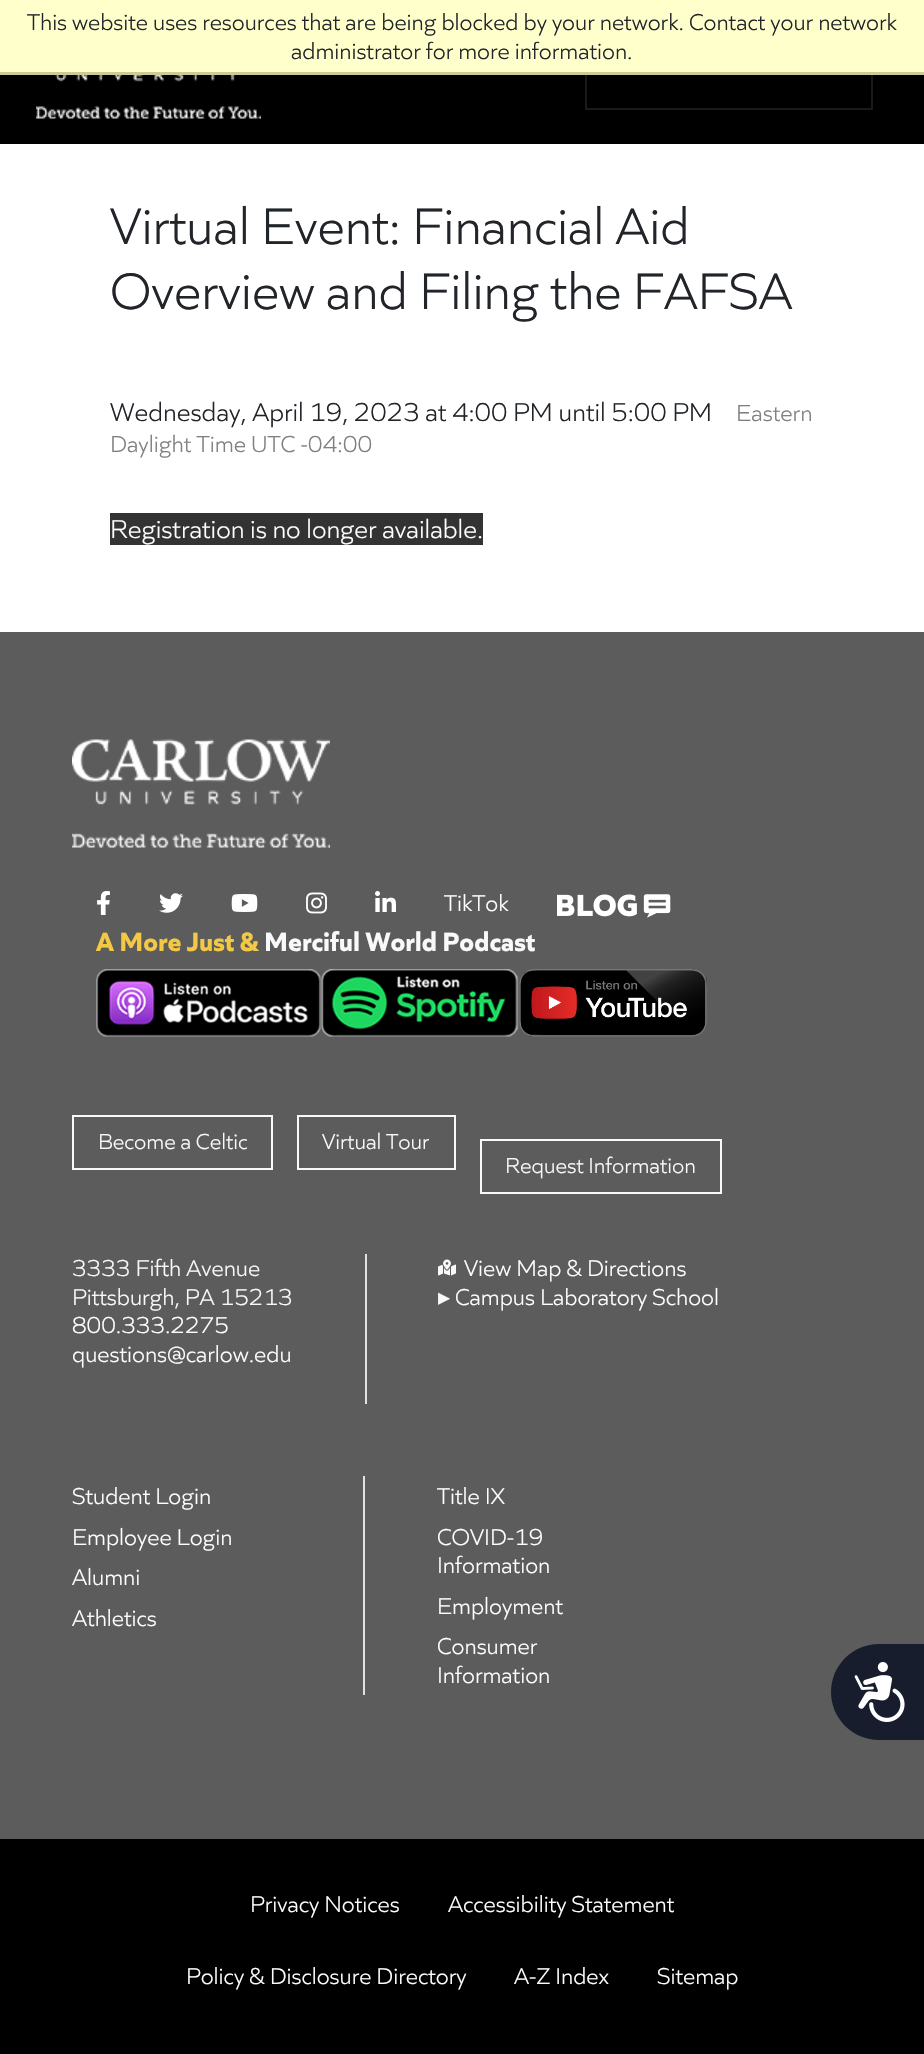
void draw(SkCanvas* canvas) {
	SkPaint paint;
	paint.setAntiAlias(true);
	auto svgPath = [&](const char* data, bool evenOdd = false) {
		SkPath result = *SkParsePath::FromSVGString(data);
		if (evenOdd) result.setFillType(SkPathFillType::kEvenOdd);
		return result;
	};
	canvas->clear(0xffffffff);
	paint.setColor(0xff000000);
	canvas->drawRect(SkRect::MakeXYWH(0, 75, 924, 69), paint);
	paint.setStroke(true);
	paint.setStrokeWidth(2);
	paint.setColor(0xff1a1a1a);
	canvas->drawRect(SkRect::MakeXYWH(586, 13, 286, 96), paint);
	paint.setStroke(false);
	paint.setColor(0xffffffcc);
	canvas->drawRect(SkRect::MakeXYWH(0, 0, 924, 72), paint);
	paint.setColor(0xffcccc99);
	canvas->drawRect(SkRect::MakeXYWH(0, 72, 924, 3), paint);
	SkFont f1(fontMgr->matchFamilyStyle("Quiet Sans", SkFontStyle(300, SkFontStyle::kNormal_Width, SkFontStyle::kUpright_Slant)), 24);
	f1.setSubpixel(true);
	paint.setColor(0xff212529);
	canvas->drawString("This website uses resources that are being blocked by your network. Contact your network", 27, 30, f1, paint);
	canvas->drawString("administrator for more information.", 291, 59, f1, paint);
	canvas->drawImageRect(SkImages::DeferredFromEncodedData(SkData::MakeFromFileName("img1.png")), SkRect::MakeXYWH(36, 75, 225, 44), SkSamplingOptions());
	SkFont f2(fontMgr->matchFamilyStyle("Quiet Sans", SkFontStyle(300, SkFontStyle::kNormal_Width, SkFontStyle::kUpright_Slant)), 53.6);
	f2.setSubpixel(true);
	canvas->drawString("Virtual Event: Financial Aid", 110, 244, f2, paint);
	canvas->drawString("Overview and Filing the FAFSA", 110, 309, f2, paint);
	SkFont f3(fontMgr->matchFamilyStyle("Quiet Sans", SkFontStyle(300, SkFontStyle::kNormal_Width, SkFontStyle::kUpright_Slant)), 27);
	f3.setSubpixel(true);
	canvas->drawString("Wednesday, April 19, 2023 at 4:00 PM until 5:00 PM", 110, 421, f3, paint);
	SkFont f4(fontMgr->matchFamilyStyle("Quiet Sans", SkFontStyle(300, SkFontStyle::kNormal_Width, SkFontStyle::kUpright_Slant)), 24.25);
	f4.setSubpixel(true);
	paint.setColor(0xff808080);
	canvas->drawString("Eastern", 736, 421, f4, paint);
	canvas->drawString("Daylight Time UTC -04:00", 110, 452, f4, paint);
	paint.setColor(0xff333333);
	canvas->drawRect(SkRect::MakeXYWH(110, 513, 373, 32), paint);
	paint.setColor(0xffffffff);
	canvas->drawString("Registration is no longer available.", 110, 538, f3, paint);
	paint.setColor(0xff5c5c5c);
	canvas->drawRect(SkRect::MakeXYWH(0, 632, 924, 1207), paint);
	canvas->drawImageRect(SkImages::DeferredFromEncodedData(SkData::MakeFromFileName("img2.png")), SkRect::MakeXYWH(72, 739, 258, 109), SkSamplingOptions());
	canvas->drawImageRect(SkImages::DeferredFromEncodedData(SkData::MakeFromFileName("img3.png")), SkRect::MakeXYWH(97, 891, 13, 24), SkSamplingOptions());
	canvas->drawImageRect(SkImages::DeferredFromEncodedData(SkData::MakeFromFileName("img4.png")), SkRect::MakeXYWH(159, 893, 24, 20), SkSamplingOptions());
	canvas->drawImageRect(SkImages::DeferredFromEncodedData(SkData::MakeFromFileName("img5.png")), SkRect::MakeXYWH(231, 894, 27, 18), SkSamplingOptions());
	canvas->drawImageRect(SkImages::DeferredFromEncodedData(SkData::MakeFromFileName("img6.png")), SkRect::MakeXYWH(306, 892, 21, 22), SkSamplingOptions());
	canvas->drawImageRect(SkImages::DeferredFromEncodedData(SkData::MakeFromFileName("img7.png")), SkRect::MakeXYWH(375, 891, 21, 21), SkSamplingOptions());
	paint.setColor(0xffffffff);
	canvas->drawString("TikTok", 444, 911, f1, paint);
	canvas->drawImageRect(SkImages::DeferredFromEncodedData(SkData::MakeFromFileName("img8.png")), SkRect::MakeXYWH(557, 894, 114, 24), SkSamplingOptions());
	SkFont f5(fontMgr->matchFamilyStyle("Quiet Sans", SkFontStyle::Bold()), 27.75);
	f5.setSubpixel(true);
	paint.setColor(0xfff2c844);
	canvas->drawString("A More Just &", 96, 951, f5, paint);
	paint.setColor(0xfff8f9fa);
	canvas->drawString("Merciful World Podcast", 264, 951, f5, paint);
	canvas->drawImageRect(SkImages::DeferredFromEncodedData(SkData::MakeFromFileName("img9.png")), SkRect::MakeXYWH(96, 969, 225, 68), SkSamplingOptions());
	canvas->drawImageRect(SkImages::DeferredFromEncodedData(SkData::MakeFromFileName("img10.png")), SkRect::MakeXYWH(321, 969, 198, 68), SkSamplingOptions());
	canvas->drawImageRect(SkImages::DeferredFromEncodedData(SkData::MakeFromFileName("img11.png")), SkRect::MakeXYWH(519, 969, 188, 68), SkSamplingOptions());
	paint.setStroke(true);
	canvas->drawRect(SkRect::MakeXYWH(73, 1116, 199, 53), paint);
	SkFont f6(fontMgr->matchFamilyStyle("Quiet Sans", SkFontStyle(300, SkFontStyle::kNormal_Width, SkFontStyle::kUpright_Slant)), 22.75);
	f6.setSubpixel(true);
	paint.setStroke(false);
	canvas->drawString("Become a Celtic", 98, 1149, f6, paint);
	paint.setStroke(true);
	canvas->drawRect(SkRect::MakeXYWH(298, 1116, 157, 53), paint);
	paint.setStroke(false);
	canvas->drawString("Virtual Tour", 322, 1149, f6, paint);
	paint.setStroke(true);
	canvas->drawRect(SkRect::MakeXYWH(481, 1140, 240, 53), paint);
	paint.setStroke(false);
	canvas->drawString("Request Information", 505, 1173, f6, paint);
	paint.setColor(0xffdee2e6);
	canvas->drawRect(SkRect::MakeXYWH(365, 1254, 2, 150), paint);
	paint.setColor(0xfff8f9fa);
	canvas->drawString("3333 Fifth Avenue", 72, 1276, f1, paint);
	canvas->drawString("Pittsburgh, PA 15213", 72, 1305, f1, paint);
	paint.setColor(0xffffffff);
	canvas->drawString("800.333.2275", 72, 1333, f1, paint);
	canvas->drawString("questions@carlow.edu", 72, 1362, f1, paint);
	canvas->drawImageRect(SkImages::DeferredFromEncodedData(SkData::MakeFromFileName("img12.png")), SkRect::MakeXYWH(438, 1259, 18, 17), SkSamplingOptions());
	canvas->drawString("View Map & Directions", 464, 1276, f1, paint);
	SkFont f7(fontMgr->matchFamilyStyle("DejaVu Sans", SkFontStyle::Normal()), 24);
	f7.setSubpixel(true);
	paint.setColor(0xfff8f9fa);
	canvas->drawString("▸", 438, 1305, f7, paint);
	paint.setColor(0xffffffff);
	canvas->drawString("Campus Laboratory School", 455, 1305, f1, paint);
	paint.setColor(0xffdee2e6);
	canvas->drawRect(SkRect::MakeXYWH(363, 1476, 2, 219), paint);
	paint.setColor(0xffffffff);
	canvas->drawString("Student Login", 72, 1504, f1, paint);
	canvas->drawString("Employee Login", 72, 1545, f1, paint);
	canvas->drawString("Alumni", 72, 1585, f1, paint);
	canvas->drawString("Athletics", 72, 1626, f1, paint);
	canvas->drawString("Title IX", 437, 1504, f1, paint);
	canvas->drawString("COVID-19", 437, 1545, f1, paint);
	canvas->drawString("Information", 437, 1573, f1, paint);
	canvas->drawString("Employment", 437, 1614, f1, paint);
	canvas->drawString("Consumer", 437, 1654, f1, paint);
	canvas->drawString("Information", 437, 1683, f1, paint);
	paint.setColor(0xff000001);
	canvas->drawRect(SkRect::MakeXYWH(0, 1839, 924, 215), paint);
	paint.setColor(0xffffffff);
	canvas->drawString("Privacy Notices", 250, 1912, f1, paint);
	canvas->drawString("Accessibility Statement", 448, 1912, f1, paint);
	canvas->drawString("Policy & Disclosure Directory", 186, 1984, f1, paint);
	canvas->drawString("A-Z Index", 514, 1984, f1, paint);
	canvas->drawString("Sitemap", 657, 1984, f1, paint);
	paint.setColor(0xff171d2d);
	canvas->drawPath(svgPath("M879 1644H924V1740H879C852.5 1740 831 1718.5 831 1692C831 1665.5 852.5 1644 879 1644Z"), paint);
	canvas->drawImageRect(SkImages::DeferredFromEncodedData(SkData::MakeFromFileName("img13.png")), SkRect::MakeXYWH(854, 1662, 51, 60), SkSamplingOptions());
}
